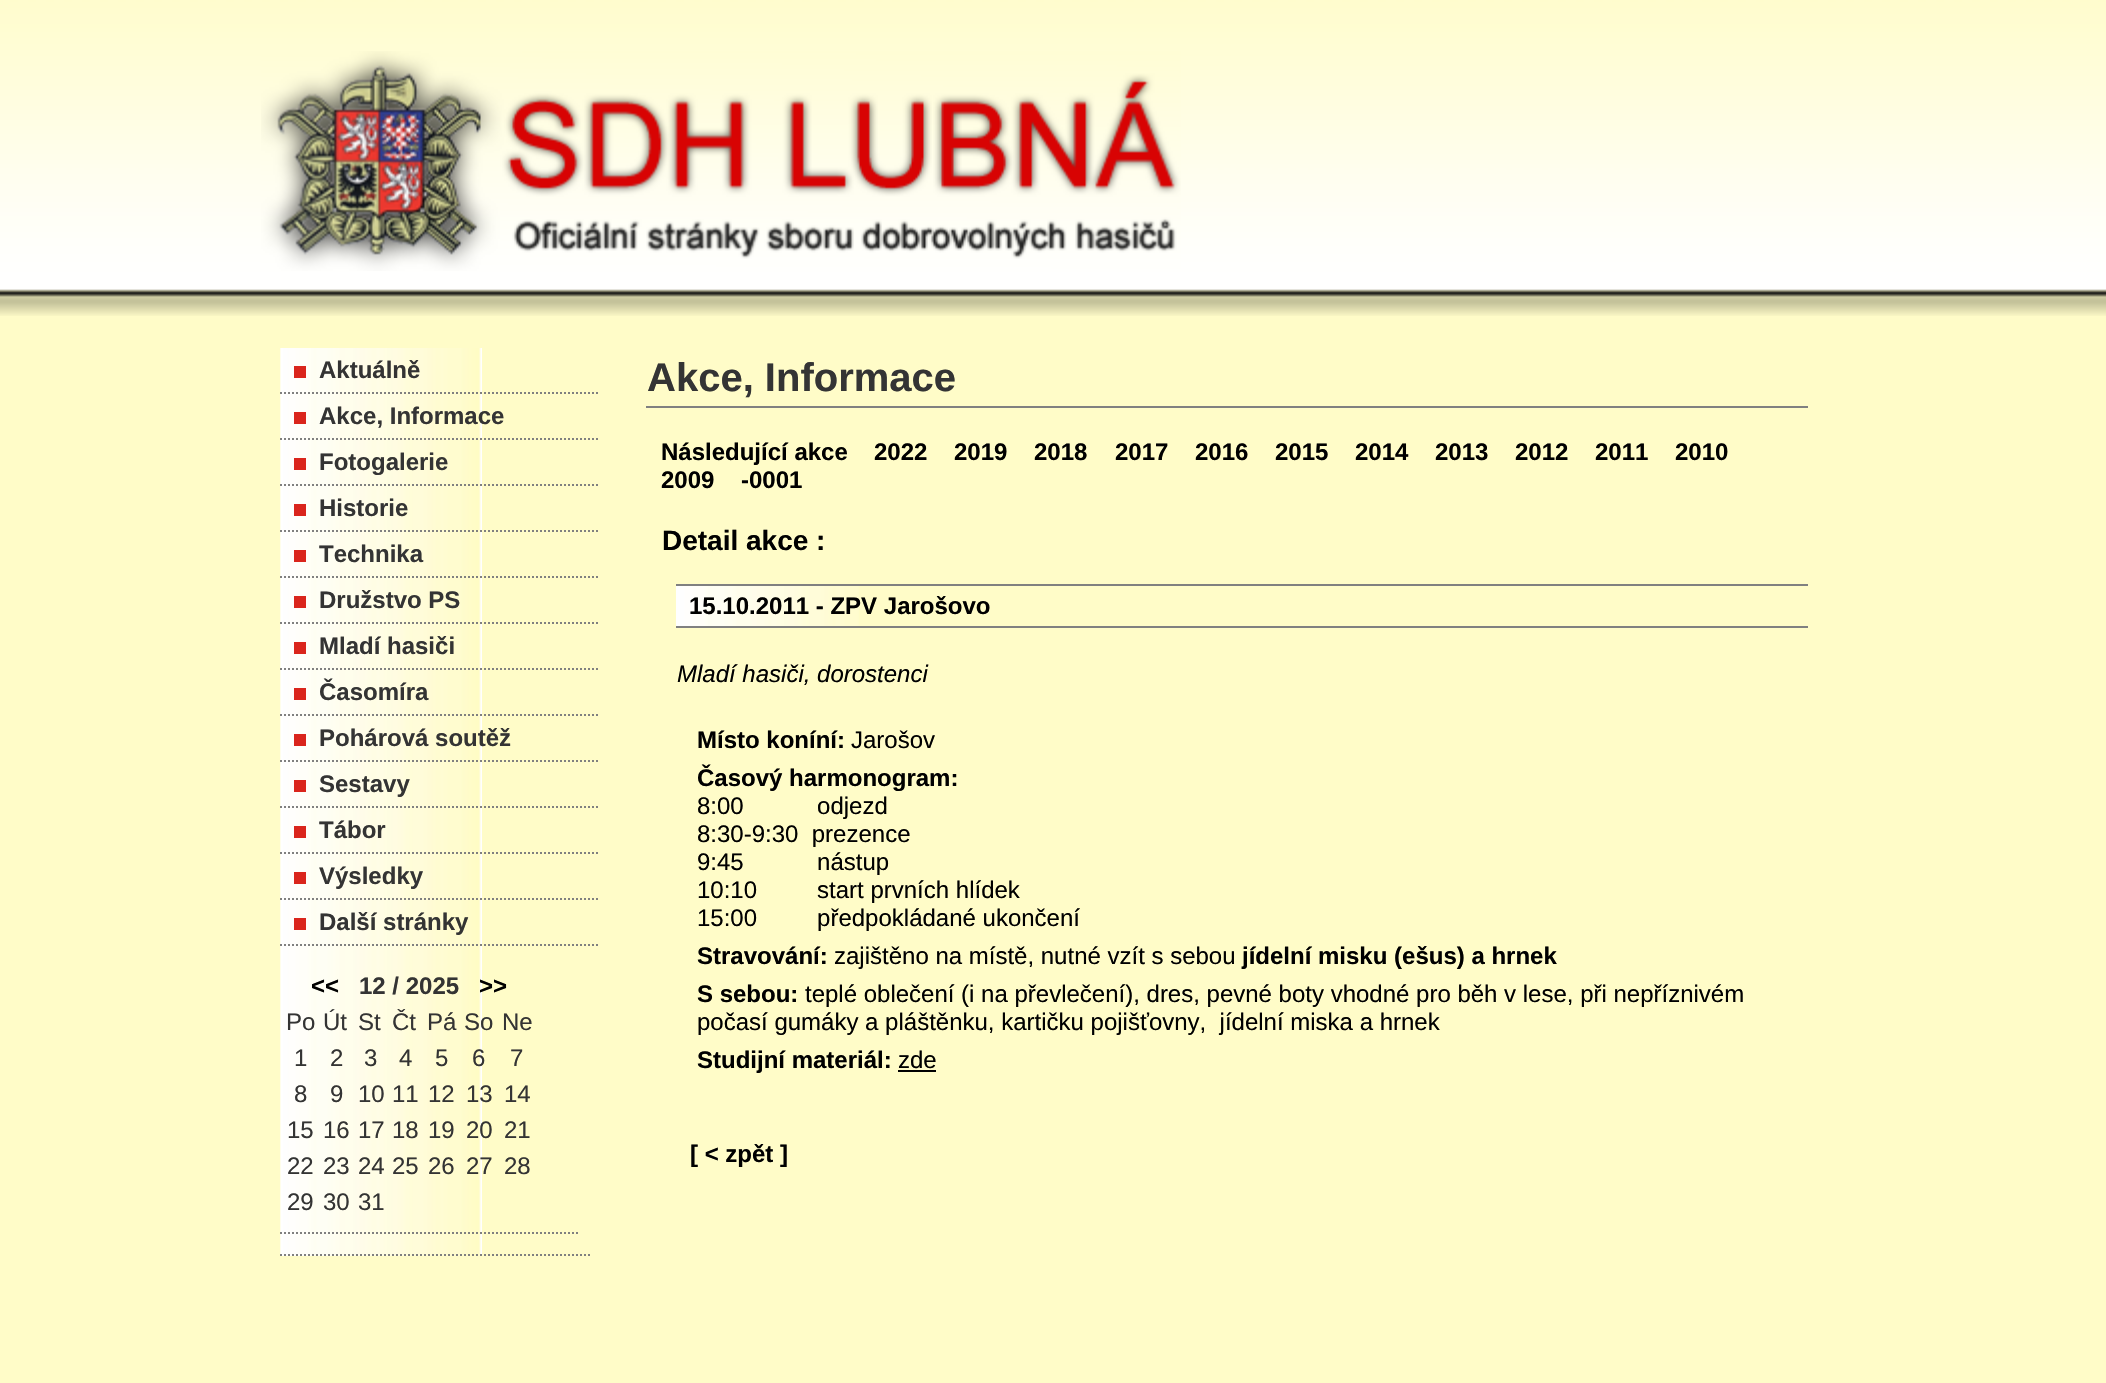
void draw(SkCanvas* canvas) {
	SkPaint paint;
	paint.setAntiAlias(true);
	auto svgPath = [&](const char* data, bool evenOdd = false) {
		SkPath result = *SkParsePath::FromSVGString(data);
		if (evenOdd) result.setFillType(SkPathFillType::kEvenOdd);
		return result;
	};
	canvas->clear(0xfffffcc8);
	canvas->drawImageRect(SkImages::DeferredFromEncodedData(SkData::MakeFromFileName("img1.png")), SkRect::MakeXYWH(0, 0, 2106, 316), SkSamplingOptions());
	canvas->drawImageRect(SkImages::DeferredFromEncodedData(SkData::MakeFromFileName("img2.png")), SkRect::MakeXYWH(261, 51, 920, 220), SkSamplingOptions());
	canvas->drawImageRect(SkImages::DeferredFromEncodedData(SkData::MakeFromFileName("img3.png")), SkRect::MakeXYWH(280, 348, 202, 46), SkSamplingOptions());
	paint.setStroke(true);
	paint.setStrokeWidth(2);
	paint.setColor(0xff808080);
	paint.setPathEffect(SkDashPathEffect::Make({{2, 2}}, 0));
	canvas->drawPath(svgPath("M280 393H598"), paint);
	paint.setPathEffect(nullptr);
	paint.setStroke(false);
	paint.setColor(0xffda251c);
	canvas->drawRect(SkRect::MakeXYWH(294, 366, 12, 12), paint);
	SkFont f1(fontMgr->matchFamilyStyle("Liberation Sans", SkFontStyle::Bold()), 24);
	f1.setSubpixel(true);
	paint.setColor(0xff343434);
	canvas->drawString("Aktuálně", 319, 378, f1, paint);
	canvas->drawImageRect(SkImages::DeferredFromEncodedData(SkData::MakeFromFileName("img3.png")), SkRect::MakeXYWH(280, 394, 202, 46), SkSamplingOptions());
	paint.setStroke(true);
	paint.setColor(0xff808080);
	paint.setPathEffect(SkDashPathEffect::Make({{2, 2}}, 0));
	canvas->drawPath(svgPath("M280 439H598"), paint);
	paint.setPathEffect(nullptr);
	paint.setStroke(false);
	paint.setColor(0xffda251c);
	canvas->drawRect(SkRect::MakeXYWH(294, 412, 12, 12), paint);
	paint.setColor(0xff343434);
	canvas->drawString("Akce, Informace", 319, 424, f1, paint);
	canvas->drawImageRect(SkImages::DeferredFromEncodedData(SkData::MakeFromFileName("img3.png")), SkRect::MakeXYWH(280, 440, 202, 46), SkSamplingOptions());
	paint.setStroke(true);
	paint.setColor(0xff808080);
	paint.setPathEffect(SkDashPathEffect::Make({{2, 2}}, 0));
	canvas->drawPath(svgPath("M280 485H598"), paint);
	paint.setPathEffect(nullptr);
	paint.setStroke(false);
	paint.setColor(0xffda251c);
	canvas->drawRect(SkRect::MakeXYWH(294, 458, 12, 12), paint);
	paint.setColor(0xff343434);
	canvas->drawString("Fotogalerie", 319, 470, f1, paint);
	canvas->drawImageRect(SkImages::DeferredFromEncodedData(SkData::MakeFromFileName("img3.png")), SkRect::MakeXYWH(280, 486, 202, 46), SkSamplingOptions());
	paint.setStroke(true);
	paint.setColor(0xff808080);
	paint.setPathEffect(SkDashPathEffect::Make({{2, 2}}, 0));
	canvas->drawPath(svgPath("M280 531H598"), paint);
	paint.setPathEffect(nullptr);
	paint.setStroke(false);
	paint.setColor(0xffda251c);
	canvas->drawRect(SkRect::MakeXYWH(294, 504, 12, 12), paint);
	paint.setColor(0xff343434);
	canvas->drawString("Historie", 319, 516, f1, paint);
	canvas->drawImageRect(SkImages::DeferredFromEncodedData(SkData::MakeFromFileName("img3.png")), SkRect::MakeXYWH(280, 532, 202, 46), SkSamplingOptions());
	paint.setStroke(true);
	paint.setColor(0xff808080);
	paint.setPathEffect(SkDashPathEffect::Make({{2, 2}}, 0));
	canvas->drawPath(svgPath("M280 577H598"), paint);
	paint.setPathEffect(nullptr);
	paint.setStroke(false);
	paint.setColor(0xffda251c);
	canvas->drawRect(SkRect::MakeXYWH(294, 550, 12, 12), paint);
	paint.setColor(0xff343434);
	canvas->drawString("Technika", 319, 562, f1, paint);
	canvas->drawImageRect(SkImages::DeferredFromEncodedData(SkData::MakeFromFileName("img3.png")), SkRect::MakeXYWH(280, 578, 202, 46), SkSamplingOptions());
	paint.setStroke(true);
	paint.setColor(0xff808080);
	paint.setPathEffect(SkDashPathEffect::Make({{2, 2}}, 0));
	canvas->drawPath(svgPath("M280 623H598"), paint);
	paint.setPathEffect(nullptr);
	paint.setStroke(false);
	paint.setColor(0xffda251c);
	canvas->drawRect(SkRect::MakeXYWH(294, 596, 12, 12), paint);
	paint.setColor(0xff343434);
	canvas->drawString("Družstvo PS", 319, 608, f1, paint);
	canvas->drawImageRect(SkImages::DeferredFromEncodedData(SkData::MakeFromFileName("img3.png")), SkRect::MakeXYWH(280, 624, 202, 46), SkSamplingOptions());
	paint.setStroke(true);
	paint.setColor(0xff808080);
	paint.setPathEffect(SkDashPathEffect::Make({{2, 2}}, 0));
	canvas->drawPath(svgPath("M280 669H598"), paint);
	paint.setPathEffect(nullptr);
	paint.setStroke(false);
	paint.setColor(0xffda251c);
	canvas->drawRect(SkRect::MakeXYWH(294, 642, 12, 12), paint);
	paint.setColor(0xff343434);
	canvas->drawString("Mladí hasiči", 319, 654, f1, paint);
	canvas->drawImageRect(SkImages::DeferredFromEncodedData(SkData::MakeFromFileName("img3.png")), SkRect::MakeXYWH(280, 670, 202, 46), SkSamplingOptions());
	paint.setStroke(true);
	paint.setColor(0xff808080);
	paint.setPathEffect(SkDashPathEffect::Make({{2, 2}}, 0));
	canvas->drawPath(svgPath("M280 715H598"), paint);
	paint.setPathEffect(nullptr);
	paint.setStroke(false);
	paint.setColor(0xffda251c);
	canvas->drawRect(SkRect::MakeXYWH(294, 688, 12, 12), paint);
	paint.setColor(0xff343434);
	canvas->drawString("Časomíra", 319, 700, f1, paint);
	canvas->drawImageRect(SkImages::DeferredFromEncodedData(SkData::MakeFromFileName("img3.png")), SkRect::MakeXYWH(280, 716, 202, 46), SkSamplingOptions());
	paint.setStroke(true);
	paint.setColor(0xff808080);
	paint.setPathEffect(SkDashPathEffect::Make({{2, 2}}, 0));
	canvas->drawPath(svgPath("M280 761H598"), paint);
	paint.setPathEffect(nullptr);
	paint.setStroke(false);
	paint.setColor(0xffda251c);
	canvas->drawRect(SkRect::MakeXYWH(294, 734, 12, 12), paint);
	paint.setColor(0xff343434);
	canvas->drawString("Pohárová soutěž", 319, 746, f1, paint);
	canvas->drawImageRect(SkImages::DeferredFromEncodedData(SkData::MakeFromFileName("img3.png")), SkRect::MakeXYWH(280, 762, 202, 46), SkSamplingOptions());
	paint.setStroke(true);
	paint.setColor(0xff808080);
	paint.setPathEffect(SkDashPathEffect::Make({{2, 2}}, 0));
	canvas->drawPath(svgPath("M280 807H598"), paint);
	paint.setPathEffect(nullptr);
	paint.setStroke(false);
	paint.setColor(0xffda251c);
	canvas->drawRect(SkRect::MakeXYWH(294, 780, 12, 12), paint);
	paint.setColor(0xff343434);
	canvas->drawString("Sestavy", 319, 792, f1, paint);
	canvas->drawImageRect(SkImages::DeferredFromEncodedData(SkData::MakeFromFileName("img3.png")), SkRect::MakeXYWH(280, 808, 202, 46), SkSamplingOptions());
	paint.setStroke(true);
	paint.setColor(0xff808080);
	paint.setPathEffect(SkDashPathEffect::Make({{2, 2}}, 0));
	canvas->drawPath(svgPath("M280 853H598"), paint);
	paint.setPathEffect(nullptr);
	paint.setStroke(false);
	paint.setColor(0xffda251c);
	canvas->drawRect(SkRect::MakeXYWH(294, 826, 12, 12), paint);
	paint.setColor(0xff343434);
	canvas->drawString("Tábor", 319, 838, f1, paint);
	canvas->drawImageRect(SkImages::DeferredFromEncodedData(SkData::MakeFromFileName("img3.png")), SkRect::MakeXYWH(280, 854, 202, 46), SkSamplingOptions());
	paint.setStroke(true);
	paint.setColor(0xff808080);
	paint.setPathEffect(SkDashPathEffect::Make({{2, 2}}, 0));
	canvas->drawPath(svgPath("M280 899H598"), paint);
	paint.setPathEffect(nullptr);
	paint.setStroke(false);
	paint.setColor(0xffda251c);
	canvas->drawRect(SkRect::MakeXYWH(294, 872, 12, 12), paint);
	paint.setColor(0xff343434);
	canvas->drawString("Výsledky", 319, 884, f1, paint);
	canvas->drawImageRect(SkImages::DeferredFromEncodedData(SkData::MakeFromFileName("img3.png")), SkRect::MakeXYWH(280, 900, 202, 46), SkSamplingOptions());
	paint.setStroke(true);
	paint.setColor(0xff808080);
	paint.setPathEffect(SkDashPathEffect::Make({{2, 2}}, 0));
	canvas->drawPath(svgPath("M280 945H598"), paint);
	paint.setPathEffect(nullptr);
	paint.setStroke(false);
	paint.setColor(0xffda251c);
	canvas->drawRect(SkRect::MakeXYWH(294, 918, 12, 12), paint);
	paint.setColor(0xff343434);
	canvas->drawString("Další stránky", 319, 930, f1, paint);
	canvas->drawImageRect(SkImages::DeferredFromEncodedData(SkData::MakeFromFileName("img4.png")), SkRect::MakeXYWH(280, 946, 202, 288), SkSamplingOptions());
	paint.setStroke(true);
	paint.setColor(0xff808080);
	paint.setPathEffect(SkDashPathEffect::Make({{2, 2}}, 0));
	canvas->drawPath(svgPath("M280 1233H580"), paint);
	paint.setPathEffect(nullptr);
	paint.setStroke(false);
	paint.setColor(0xff000000);
	canvas->drawString("<<", 311, 994, f1, paint);
	paint.setColor(0xff343434);
	canvas->drawString("12 / 2025", 359, 994, f1, paint);
	paint.setColor(0xff000000);
	canvas->drawString(">>", 479, 994, f1, paint);
	SkFont f2(fontMgr->matchFamilyStyle("Liberation Sans", SkFontStyle::Normal()), 24);
	f2.setSubpixel(true);
	paint.setColor(0xff343434);
	canvas->drawString("Po", 286, 1030, f2, paint);
	canvas->drawString("Út", 323, 1030, f2, paint);
	canvas->drawString("St", 358, 1030, f2, paint);
	canvas->drawString("Čt", 392, 1030, f2, paint);
	canvas->drawString("Pá", 427, 1030, f2, paint);
	canvas->drawString("So", 464, 1030, f2, paint);
	canvas->drawString("Ne", 502, 1030, f2, paint);
	canvas->drawString("1", 294, 1066, f2, paint);
	canvas->drawString("2", 330, 1066, f2, paint);
	canvas->drawString("3", 364, 1066, f2, paint);
	canvas->drawString("4", 399, 1066, f2, paint);
	canvas->drawString("5", 435, 1066, f2, paint);
	canvas->drawString("6", 472, 1066, f2, paint);
	canvas->drawString("7", 510, 1066, f2, paint);
	canvas->drawString("8", 294, 1102, f2, paint);
	canvas->drawString("9", 330, 1102, f2, paint);
	canvas->drawString("10", 358, 1102, f2, paint);
	canvas->drawString("11", 392, 1102, f2, paint);
	canvas->drawString("12", 428, 1102, f2, paint);
	canvas->drawString("13", 466, 1102, f2, paint);
	canvas->drawString("14", 504, 1102, f2, paint);
	canvas->drawString("15", 287, 1138, f2, paint);
	canvas->drawString("16", 323, 1138, f2, paint);
	canvas->drawString("17", 358, 1138, f2, paint);
	canvas->drawString("18", 392, 1138, f2, paint);
	canvas->drawString("19", 428, 1138, f2, paint);
	canvas->drawString("20", 466, 1138, f2, paint);
	canvas->drawString("21", 504, 1138, f2, paint);
	canvas->drawString("22", 287, 1174, f2, paint);
	canvas->drawString("23", 323, 1174, f2, paint);
	canvas->drawString("24", 358, 1174, f2, paint);
	canvas->drawString("25", 392, 1174, f2, paint);
	canvas->drawString("26", 428, 1174, f2, paint);
	canvas->drawString("27", 466, 1174, f2, paint);
	canvas->drawString("28", 504, 1174, f2, paint);
	canvas->drawString("29", 287, 1210, f2, paint);
	canvas->drawString("30", 323, 1210, f2, paint);
	canvas->drawString("31", 358, 1210, f2, paint);
	canvas->drawImageRect(SkImages::DeferredFromEncodedData(SkData::MakeFromFileName("img5.png")), SkRect::MakeXYWH(280, 1234, 202, 22), SkSamplingOptions());
	paint.setStroke(true);
	paint.setColor(0xff808080);
	paint.setPathEffect(SkDashPathEffect::Make({{2, 2}}, 0));
	canvas->drawPath(svgPath("M280 1255H590"), paint);
	paint.setPathEffect(nullptr);
	paint.setStroke(false);
	canvas->drawRect(SkRect::MakeXYWH(646, 406, 1162, 2), paint);
	SkFont f3(fontMgr->matchFamilyStyle("Liberation Sans", SkFontStyle::Bold()), 40);
	f3.setSubpixel(true);
	paint.setColor(0xff343434);
	canvas->drawString("Akce, Informace", 647, 391, f3, paint);
	paint.setColor(0xff000000);
	canvas->drawString("Následující akce", 661, 460, f1, paint);
	canvas->drawString("2022", 874, 460, f1, paint);
	canvas->drawString("2019", 954, 460, f1, paint);
	canvas->drawString("2018", 1034, 460, f1, paint);
	canvas->drawString("2017", 1115, 460, f1, paint);
	canvas->drawString("2016", 1195, 460, f1, paint);
	canvas->drawString("2015", 1275, 460, f1, paint);
	canvas->drawString("2014", 1355, 460, f1, paint);
	canvas->drawString("2013", 1435, 460, f1, paint);
	canvas->drawString("2012", 1515, 460, f1, paint);
	canvas->drawString("2011", 1595, 460, f1, paint);
	canvas->drawString("2010", 1675, 460, f1, paint);
	canvas->drawString("2009", 661, 488, f1, paint);
	canvas->drawString("-0001", 741, 488, f1, paint);
	SkFont f4(fontMgr->matchFamilyStyle("Liberation Sans", SkFontStyle::Bold()), 28);
	f4.setSubpixel(true);
	canvas->drawString("Detail akce :", 662, 550, f4, paint);
	canvas->drawImageRect(SkImages::DeferredFromEncodedData(SkData::MakeFromFileName("img6.png")), SkRect::MakeXYWH(676, 586, 183, 40), SkSamplingOptions());
	paint.setColor(0xff808080);
	canvas->drawRect(SkRect::MakeXYWH(676, 584, 1132, 2), paint);
	canvas->drawRect(SkRect::MakeXYWH(676, 626, 1132, 2), paint);
	paint.setColor(0xff000000);
	canvas->drawString("15.10.2011 - ZPV Jarošovo", 689, 614, f1, paint);
	SkFont f5(fontMgr->matchFamilyStyle("Liberation Sans", SkFontStyle::Italic()), 24);
	f5.setSubpixel(true);
	canvas->drawString("Mladí hasiči, dorostenci", 677, 682, f5, paint);
	canvas->drawString("Místo koníní:", 697, 748, f1, paint);
	canvas->drawString("Jarošov", 851, 748, f2, paint);
	canvas->drawString("Časový harmonogram:", 697, 786, f1, paint);
	canvas->drawString("8:00           odjezd", 697, 814, f2, paint);
	canvas->drawString("8:30-9:30  prezence", 697, 842, f2, paint);
	canvas->drawString("9:45           nástup", 697, 870, f2, paint);
	canvas->drawString("10:10         start prvních hlídek", 697, 898, f2, paint);
	canvas->drawString("15:00         předpokládané ukončení", 697, 926, f2, paint);
	canvas->drawString("Stravování:", 697, 964, f1, paint);
	canvas->drawString("zajištěno na místě, nutné vzít s sebou", 834, 964, f2, paint);
	canvas->drawString("jídelní misku (ešus) a hrnek", 1242, 964, f1, paint);
	canvas->drawString("S sebou:", 697, 1002, f1, paint);
	canvas->drawString("teplé oblečení (i na převlečení), dres, pevné boty vhodné pro běh v lese, při nepříznivém", 805, 1002, f2, paint);
	canvas->drawString("počasí gumáky a pláštěnku, kartičku pojišťovny,  jídelní miska a hrnek", 697, 1030, f2, paint);
	canvas->drawString("Studijní materiál:", 697, 1068, f1, paint);
	canvas->drawString("zde", 898, 1068, f2, paint);
	canvas->drawRect(SkRect::MakeXYWH(898, 1070, 38, 2), paint);
	canvas->drawString("[ < zpět ]", 690, 1162, f1, paint);
}
